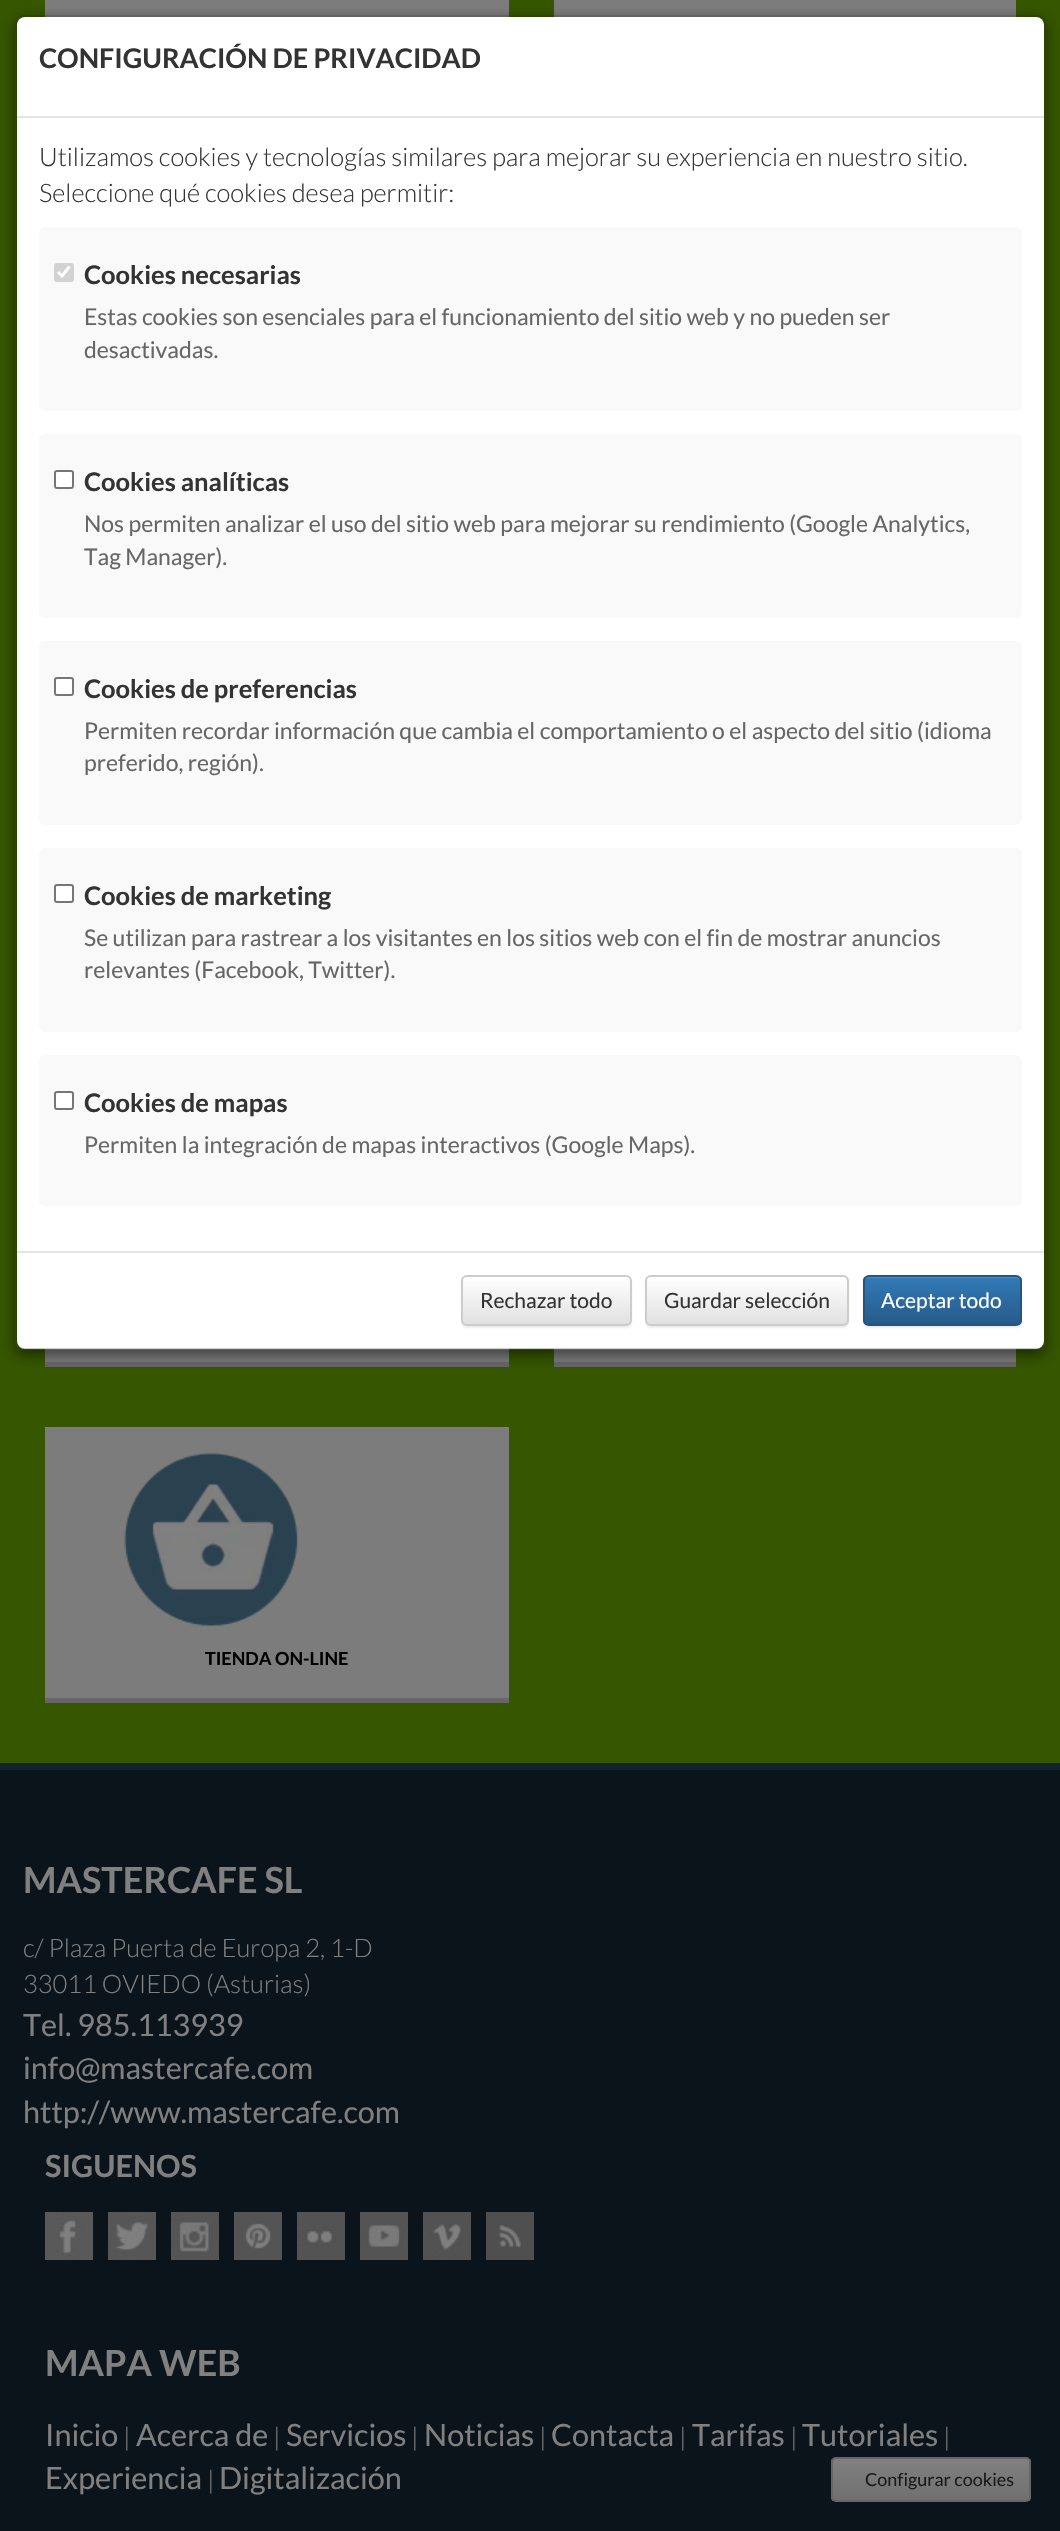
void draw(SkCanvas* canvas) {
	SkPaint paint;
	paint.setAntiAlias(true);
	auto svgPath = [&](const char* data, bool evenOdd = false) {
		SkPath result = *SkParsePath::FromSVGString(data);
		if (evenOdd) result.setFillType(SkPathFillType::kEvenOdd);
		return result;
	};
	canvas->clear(0xff365600);
	paint.setColor(0xff7c7c7c);
	canvas->drawRect(SkRect::MakeXYWH(45, 0, 464, 17), paint);
	canvas->drawRect(SkRect::MakeXYWH(554, 0, 462, 17), paint);
	canvas->drawRect(SkRect::MakeXYWH(45, 1349, 464, 13), paint);
	paint.setColor(0xff666666);
	canvas->drawRect(SkRect::MakeXYWH(45, 1362, 464, 5), paint);
	paint.setColor(0xff7c7c7c);
	canvas->drawRect(SkRect::MakeXYWH(554, 1349, 462, 13), paint);
	paint.setColor(0xff666666);
	canvas->drawRect(SkRect::MakeXYWH(554, 1362, 462, 5), paint);
	canvas->save();
	canvas->clipPath(svgPath("M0 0H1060V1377H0ZM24 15H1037C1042 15 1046 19 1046 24V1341C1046 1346 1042 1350 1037 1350H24C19 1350 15 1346 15 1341V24C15 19 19 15 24 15Z", true), true);
	paint.setColor(0x80000000);
	paint.setMaskFilter(SkMaskFilter::MakeBlur(kNormal_SkBlurStyle, 7));
	canvas->drawRoundRect(SkRect::MakeXYWH(15, 20, 1031, 1335), 9, 9, paint);
	paint.setMaskFilter(nullptr);
	canvas->restore();
	paint.setColor(0xffffffff);
	canvas->drawRoundRect(SkRect::MakeXYWH(17, 17, 1027, 1332), 8, 8, paint);
	paint.setStroke(true);
	paint.setStrokeWidth(2);
	paint.setColor(0x33000000);
	canvas->drawRoundRect(SkRect::MakeXYWH(16, 16, 1029, 1333), 8, 8, paint);
	paint.setStroke(false);
	paint.setColor(0xffe5e5e5);
	canvas->drawRect(SkRect::MakeXYWH(17, 116, 1027, 2), paint);
	SkFont f1(fontMgr->matchFamilyStyle("Lato", SkFontStyle::Bold()), 27);
	f1.setSubpixel(true);
	paint.setColor(0xff333333);
	canvas->drawString("CONFIGURACIÓN DE PRIVACIDAD", 39, 68, f1, paint);
	SkFont f2(fontMgr->matchFamilyStyle("Lato", SkFontStyle(300, SkFontStyle::kNormal_Width, SkFontStyle::kUpright_Slant)), 25.5);
	f2.setSubpixel(true);
	canvas->drawString("Utilizamos cookies y tecnologías similares para mejorar su experiencia en nuestro sitio.", 39, 166, f2, paint);
	canvas->drawString("Seleccione qué cookies desea permitir:", 39, 202, f2, paint);
	paint.setColor(0xfff9f9f9);
	canvas->drawRoundRect(SkRect::MakeXYWH(39, 227, 983, 184), 6, 6, paint);
	paint.setColor(0xffd2d2d2);
	canvas->drawRoundRect(SkRect::MakeXYWH(54, 263, 20, 19), 3, 3, paint);
	paint.setStroke(true);
	paint.setStrokeWidth(3.1);
	paint.setColor(0xffffffff);
	canvas->drawPath(svgPath("M58 272L62 276L69.5 266.5"), paint);
	SkFont f3(fontMgr->matchFamilyStyle("Lato", SkFontStyle::Bold()), 25.5);
	f3.setSubpixel(true);
	paint.setStroke(false);
	paint.setColor(0xff333333);
	canvas->drawString("Cookies necesarias", 84, 284, f3, paint);
	SkFont f4(fontMgr->matchFamilyStyle("Lato", SkFontStyle::Normal()), 22.95);
	f4.setSubpixel(true);
	paint.setColor(0xff666666);
	canvas->drawString("Estas cookies son esenciales para el funcionamiento del sitio web y no pueden ser", 84, 325, f4, paint);
	canvas->drawString("desactivadas.", 84, 358, f4, paint);
	paint.setColor(0xfff9f9f9);
	canvas->drawRoundRect(SkRect::MakeXYWH(39, 434, 983, 184), 6, 6, paint);
	paint.setColor(0xffffffff);
	canvas->drawRoundRect(SkRect::MakeXYWH(55, 471, 18, 17), 2, 2, paint);
	paint.setStroke(true);
	paint.setStrokeWidth(2);
	paint.setColor(0xff767676);
	canvas->drawRoundRect(SkRect::MakeXYWH(55, 471, 18, 17), 2, 2, paint);
	paint.setStroke(false);
	paint.setColor(0xff333333);
	canvas->drawString("Cookies analíticas", 84, 491, f3, paint);
	paint.setColor(0xff666666);
	canvas->drawString("Nos permiten analizar el uso del sitio web para mejorar su rendimiento (Google Analytics,", 84, 532, f4, paint);
	canvas->drawString("Tag Manager).", 84, 565, f4, paint);
	paint.setColor(0xfff9f9f9);
	canvas->drawRoundRect(SkRect::MakeXYWH(39, 641, 983, 184), 6, 6, paint);
	paint.setColor(0xffffffff);
	canvas->drawRoundRect(SkRect::MakeXYWH(55, 678, 18, 17), 2, 2, paint);
	paint.setStroke(true);
	paint.setColor(0xff767676);
	canvas->drawRoundRect(SkRect::MakeXYWH(55, 678, 18, 17), 2, 2, paint);
	paint.setStroke(false);
	paint.setColor(0xff333333);
	canvas->drawString("Cookies de preferencias", 84, 698, f3, paint);
	paint.setColor(0xff666666);
	canvas->drawString("Permiten recordar información que cambia el comportamiento o el aspecto del sitio (idioma", 84, 739, f4, paint);
	canvas->drawString("preferido, región).", 84, 771, f4, paint);
	paint.setColor(0xfff9f9f9);
	canvas->drawRoundRect(SkRect::MakeXYWH(39, 848, 983, 184), 6, 6, paint);
	paint.setColor(0xffffffff);
	canvas->drawRoundRect(SkRect::MakeXYWH(55, 885, 18, 17), 2, 2, paint);
	paint.setStroke(true);
	paint.setColor(0xff767676);
	canvas->drawRoundRect(SkRect::MakeXYWH(55, 885, 18, 17), 2, 2, paint);
	paint.setStroke(false);
	paint.setColor(0xff333333);
	canvas->drawString("Cookies de marketing", 84, 905, f3, paint);
	paint.setColor(0xff666666);
	canvas->drawString("Se utilizan para rastrear a los visitantes en los sitios web con el fin de mostrar anuncios", 84, 946, f4, paint);
	canvas->drawString("relevantes (Facebook, Twitter).", 84, 978, f4, paint);
	paint.setColor(0xfff9f9f9);
	canvas->drawRoundRect(SkRect::MakeXYWH(39, 1055, 983, 151), 6, 6, paint);
	paint.setColor(0xffffffff);
	canvas->drawRoundRect(SkRect::MakeXYWH(55, 1092, 18, 17), 2, 2, paint);
	paint.setStroke(true);
	paint.setColor(0xff767676);
	canvas->drawRoundRect(SkRect::MakeXYWH(55, 1092, 18, 17), 2, 2, paint);
	paint.setStroke(false);
	paint.setColor(0xff333333);
	canvas->drawString("Cookies de mapas", 84, 1112, f3, paint);
	paint.setColor(0xff666666);
	canvas->drawString("Permiten la integración de mapas interactivos (Google Maps).", 84, 1153, f4, paint);
	paint.setColor(0xffe5e5e5);
	canvas->drawRect(SkRect::MakeXYWH(17, 1251, 1027, 2), paint);
	paint.setColor(0x12000000);
	paint.setMaskFilter(SkMaskFilter::MakeBlur(kNormal_SkBlurStyle, 1));
	canvas->drawRoundRect(SkRect::MakeXYWH(461, 1277, 171, 51), 6, 6, paint);
	paint.setMaskFilter(nullptr);
	canvas->save();
	canvas->clipPath(svgPath("M467 1275H626C629.5 1275 632 1277.5 632 1281V1320C632 1323.5 629.5 1326 626 1326H467C463.5 1326 461 1323.5 461 1320V1281C461 1277.5 463.5 1275 467 1275Z"), true);
	{
		const SkColor colors[] = {0xffffffff, 0xffe0e0e0};
		const float stops[] = {0, 1};
		const SkPoint ends[] = {{546, 1277}, {546, 1325}};
		paint.setShader(SkGradientShader::MakeLinear(ends, colors, stops, 2, SkTileMode::kClamp));
		paint.setAlpha(255);
	}
	canvas->drawRect(SkRect::MakeXYWH(461, 1277, 171, 48), paint);
	canvas->restore();
	paint.setStroke(true);
	paint.setShader(nullptr);
	paint.setColor(0xffcccccc);
	canvas->drawRoundRect(SkRect::MakeXYWH(462, 1276, 169, 49), 5, 5, paint);
	SkFont f5(fontMgr->matchFamilyStyle("Lato", SkFontStyle::Normal()), 21);
	f5.setSubpixel(true);
	paint.setStroke(false);
	paint.setColor(0xff333333);
	canvas->drawString("Rechazar todo", 480, 1308, f5, paint);
	paint.setColor(0x12000000);
	paint.setMaskFilter(SkMaskFilter::MakeBlur(kNormal_SkBlurStyle, 1));
	canvas->drawRoundRect(SkRect::MakeXYWH(645, 1277, 204, 51), 6, 6, paint);
	paint.setMaskFilter(nullptr);
	canvas->save();
	canvas->clipPath(svgPath("M651 1275H843C846.5 1275 849 1277.5 849 1281V1320C849 1323.5 846.5 1326 843 1326H651C647.5 1326 645 1323.5 645 1320V1281C645 1277.5 647.5 1275 651 1275Z"), true);
	{
		const SkColor colors[] = {0xffffffff, 0xffe0e0e0};
		const float stops[] = {0, 1};
		const SkPoint ends[] = {{747, 1277}, {747, 1325}};
		paint.setShader(SkGradientShader::MakeLinear(ends, colors, stops, 2, SkTileMode::kClamp));
		paint.setAlpha(255);
	}
	canvas->drawRect(SkRect::MakeXYWH(645, 1277, 204, 48), paint);
	canvas->restore();
	paint.setStroke(true);
	paint.setShader(nullptr);
	paint.setColor(0xffcccccc);
	canvas->drawRoundRect(SkRect::MakeXYWH(646, 1276, 202, 49), 5, 5, paint);
	paint.setStroke(false);
	paint.setColor(0xff333333);
	canvas->drawString("Guardar selección", 664, 1308, f5, paint);
	paint.setColor(0x12000000);
	paint.setMaskFilter(SkMaskFilter::MakeBlur(kNormal_SkBlurStyle, 1));
	canvas->drawRoundRect(SkRect::MakeXYWH(863, 1277, 159, 51), 6, 6, paint);
	paint.setMaskFilter(nullptr);
	canvas->save();
	canvas->clipPath(svgPath("M869 1275H1016C1019.5 1275 1022 1277.5 1022 1281V1320C1022 1323.5 1019.5 1326 1016 1326H869C865.5 1326 863 1323.5 863 1320V1281C863 1277.5 865.5 1275 869 1275Z"), true);
	{
		const SkColor colors[] = {0xff337ab7, 0xff265a88};
		const float stops[] = {0, 1};
		const SkPoint ends[] = {{942, 1277}, {942, 1325}};
		paint.setShader(SkGradientShader::MakeLinear(ends, colors, stops, 2, SkTileMode::kClamp));
		paint.setAlpha(255);
	}
	canvas->drawRect(SkRect::MakeXYWH(863, 1277, 159, 48), paint);
	canvas->restore();
	paint.setShader(nullptr);
	paint.setColor(0xff528ec2);
	canvas->drawPath(svgPath("M868 1278H1016C1018 1278 1020 1280 1020 1282C1020 1279 1018 1277 1015 1277H869C866 1277 864 1279 864 1282C864 1280 866 1278 868 1278Z"), paint);
	paint.setStroke(true);
	paint.setColor(0xff245580);
	canvas->drawRoundRect(SkRect::MakeXYWH(864, 1276, 157, 49), 5, 5, paint);
	paint.setStroke(false);
	paint.setColor(0xffffffff);
	canvas->drawString("Aceptar todo", 881, 1308, f5, paint);
	paint.setColor(0xff7c7c7c);
	canvas->drawRect(SkRect::MakeXYWH(45, 1427, 464, 271), paint);
	paint.setColor(0xff666666);
	canvas->drawRect(SkRect::MakeXYWH(45, 1698, 464, 5), paint);
	canvas->drawImageRect(SkImages::DeferredFromEncodedData(SkData::MakeFromFileName("img1.png")), SkRect::MakeXYWH(124, 1452, 174, 174), SkSamplingOptions());
	SkFont f6(fontMgr->matchFamilyStyle("Lato", SkFontStyle::Bold()), 18);
	f6.setSubpixel(true);
	paint.setColor(0xff000000);
	canvas->drawString("TIENDA ON-LINE", 205, 1665, f6, paint);
	paint.setColor(0xff0b141b);
	canvas->drawRect(SkRect::MakeXYWH(0, 1770, 1060, 761), paint);
	paint.setColor(0xff122330);
	canvas->drawRect(SkRect::MakeXYWH(0, 1763, 1060, 7), paint);
	SkFont f7(fontMgr->matchFamilyStyle("Lato", SkFontStyle::Bold()), 36);
	f7.setSubpixel(true);
	paint.setColor(0xff808080);
	canvas->drawString("MASTERCAFE SL", 23, 1893, f7, paint);
	canvas->drawString("c/ Plaza Puerta de Europa 2, 1-D", 23, 1957, f2, paint);
	canvas->drawString("33011 OVIEDO (Asturias)", 23, 1993, f2, paint);
	SkFont f8(fontMgr->matchFamilyStyle("Lato", SkFontStyle::Normal()), 30.6);
	f8.setSubpixel(true);
	canvas->drawString("Tel. 985.113939", 23, 2036, f8, paint);
	canvas->drawString("info@mastercafe.com", 23, 2079, f8, paint);
	canvas->drawString("http://www.mastercafe.com", 23, 2123, f8, paint);
	SkFont f9(fontMgr->matchFamilyStyle("Lato", SkFontStyle::Bold()), 30.6);
	f9.setSubpixel(true);
	canvas->drawString("SIGUENOS", 45, 2177, f9, paint);
	canvas->drawImageRect(SkImages::DeferredFromEncodedData(SkData::MakeFromFileName("img2.png")), SkRect::MakeXYWH(45, 2212, 48, 48), SkSamplingOptions());
	canvas->drawImageRect(SkImages::DeferredFromEncodedData(SkData::MakeFromFileName("img3.png")), SkRect::MakeXYWH(108, 2212, 48, 48), SkSamplingOptions());
	canvas->drawImageRect(SkImages::DeferredFromEncodedData(SkData::MakeFromFileName("img4.png")), SkRect::MakeXYWH(171, 2212, 48, 48), SkSamplingOptions());
	canvas->drawImageRect(SkImages::DeferredFromEncodedData(SkData::MakeFromFileName("img5.png")), SkRect::MakeXYWH(234, 2212, 48, 48), SkSamplingOptions());
	canvas->drawImageRect(SkImages::DeferredFromEncodedData(SkData::MakeFromFileName("img6.png")), SkRect::MakeXYWH(297, 2212, 48, 48), SkSamplingOptions());
	canvas->drawImageRect(SkImages::DeferredFromEncodedData(SkData::MakeFromFileName("img7.png")), SkRect::MakeXYWH(360, 2212, 48, 48), SkSamplingOptions());
	canvas->drawImageRect(SkImages::DeferredFromEncodedData(SkData::MakeFromFileName("img8.png")), SkRect::MakeXYWH(423, 2212, 48, 48), SkSamplingOptions());
	canvas->drawImageRect(SkImages::DeferredFromEncodedData(SkData::MakeFromFileName("img9.png")), SkRect::MakeXYWH(486, 2212, 48, 48), SkSamplingOptions());
	canvas->drawString("MAPA WEB", 45, 2376, f7, paint);
	canvas->drawString("Inicio", 45, 2446, f8, paint);
	canvas->drawString("|", 123, 2446, f2, paint);
	canvas->drawString("Acerca de", 136, 2446, f8, paint);
	canvas->drawString("|", 273, 2446, f2, paint);
	canvas->drawString("Servicios", 286, 2446, f8, paint);
	canvas->drawString("|", 411, 2446, f2, paint);
	canvas->drawString("Noticias", 424, 2446, f8, paint);
	canvas->drawString("|", 539, 2446, f2, paint);
	canvas->drawString("Contacta", 551, 2446, f8, paint);
	canvas->drawString("|", 679, 2446, f2, paint);
	canvas->drawString("Tarifas", 692, 2446, f8, paint);
	canvas->drawString("|", 790, 2446, f2, paint);
	canvas->drawString("Tutoriales", 802, 2446, f8, paint);
	canvas->drawString("|", 943, 2446, f2, paint);
	canvas->drawString("Experiencia", 45, 2489, f8, paint);
	canvas->drawString("|", 207, 2489, f2, paint);
	canvas->drawString("Digitalización", 219, 2489, f8, paint);
	canvas->save();
	canvas->clipPath(svgPath("M836 2457H1026C1029 2457 1031 2459 1031 2462V2497C1031 2500 1029 2502 1026 2502H836C833 2502 831 2500 831 2497V2462C831 2459 833 2457 836 2457Z"), true);
	{
		const SkColor colors[] = {0xff808080, 0xff707070};
		const float stops[] = {0, 1};
		const SkPoint ends[] = {{931, 2459}, {931, 2501}};
		paint.setShader(SkGradientShader::MakeLinear(ends, colors, stops, 2, SkTileMode::kClamp));
		paint.setAlpha(255);
	}
	canvas->drawRect(SkRect::MakeXYWH(831, 2459, 200, 42), paint);
	canvas->restore();
	paint.setStroke(true);
	paint.setShader(nullptr);
	paint.setColor(0xff666666);
	canvas->drawRoundRect(SkRect::MakeXYWH(832, 2458, 198, 43), 4, 4, paint);
	SkFont f10(fontMgr->matchFamilyStyle("Lato", SkFontStyle::Normal()), 18);
	f10.setSubpixel(true);
	paint.setStroke(false);
	paint.setColor(0xff1a1a1a);
	canvas->drawString("Configurar cookies", 865, 2486, f10, paint);
}
